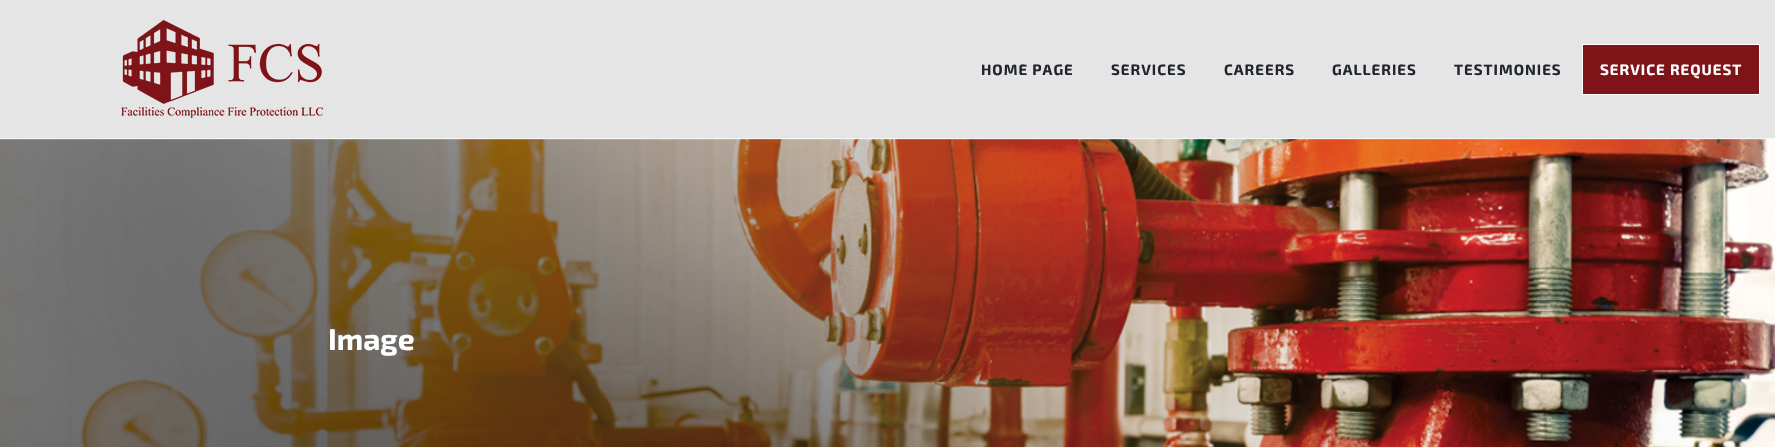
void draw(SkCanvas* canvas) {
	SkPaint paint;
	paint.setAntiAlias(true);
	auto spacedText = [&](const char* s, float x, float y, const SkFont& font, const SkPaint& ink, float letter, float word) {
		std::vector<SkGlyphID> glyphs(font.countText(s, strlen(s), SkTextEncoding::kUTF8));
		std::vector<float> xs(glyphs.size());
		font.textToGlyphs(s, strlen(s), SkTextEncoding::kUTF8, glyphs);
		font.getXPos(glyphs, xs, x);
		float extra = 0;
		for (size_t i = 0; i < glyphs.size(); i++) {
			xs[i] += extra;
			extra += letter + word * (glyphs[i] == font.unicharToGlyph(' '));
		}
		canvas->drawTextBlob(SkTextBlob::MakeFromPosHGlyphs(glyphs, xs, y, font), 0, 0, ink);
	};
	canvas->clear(0xffe5e5e5);
	canvas->drawImageRect(SkImages::DeferredFromEncodedData(SkData::MakeFromFileName("img1.png")), SkRect::MakeXYWH(121, 20, 202, 98), SkSamplingOptions());
	SkFont f1(fontMgr->matchFamilyStyle("Exo 2", SkFontStyle::Bold()), 15);
	f1.setSubpixel(true);
	paint.setColor(0xff21252d);
	spacedText("HOME PAGE", 981, 75, f1, paint, 1, 0);
	spacedText("SERVICES", 1111, 75, f1, paint, 1, 0);
	spacedText("CAREERS", 1224, 75, f1, paint, 1, 0);
	spacedText("GALLERIES", 1332, 75, f1, paint, 1, 0);
	spacedText("TESTIMONIES", 1454, 75, f1, paint, 1, 0);
	paint.setColor(0xff7f1418);
	canvas->drawRect(SkRect::MakeXYWH(1582.5, 44.5, 177, 50), paint);
	paint.setStroke(true);
	paint.setStrokeWidth(1);
	paint.setColor(0xffffffff);
	canvas->drawRect(SkRect::MakeXYWH(1582.5, 44.5, 177, 50), paint);
	paint.setStroke(false);
	spacedText("SERVICE REQUEST", 1600, 75, f1, paint, 1, 0);
	canvas->drawImageRect(SkImages::DeferredFromEncodedData(SkData::MakeFromFileName("img2.png")), SkRect::MakeXYWH(0, 138, 1775, 309), SkSamplingOptions());
	SkFont f2(fontMgr->matchFamilyStyle("Exo 2", SkFontStyle::Bold()), 30);
	f2.setSubpixel(true);
	canvas->drawString("Image", 328, 350, f2, paint);
}
